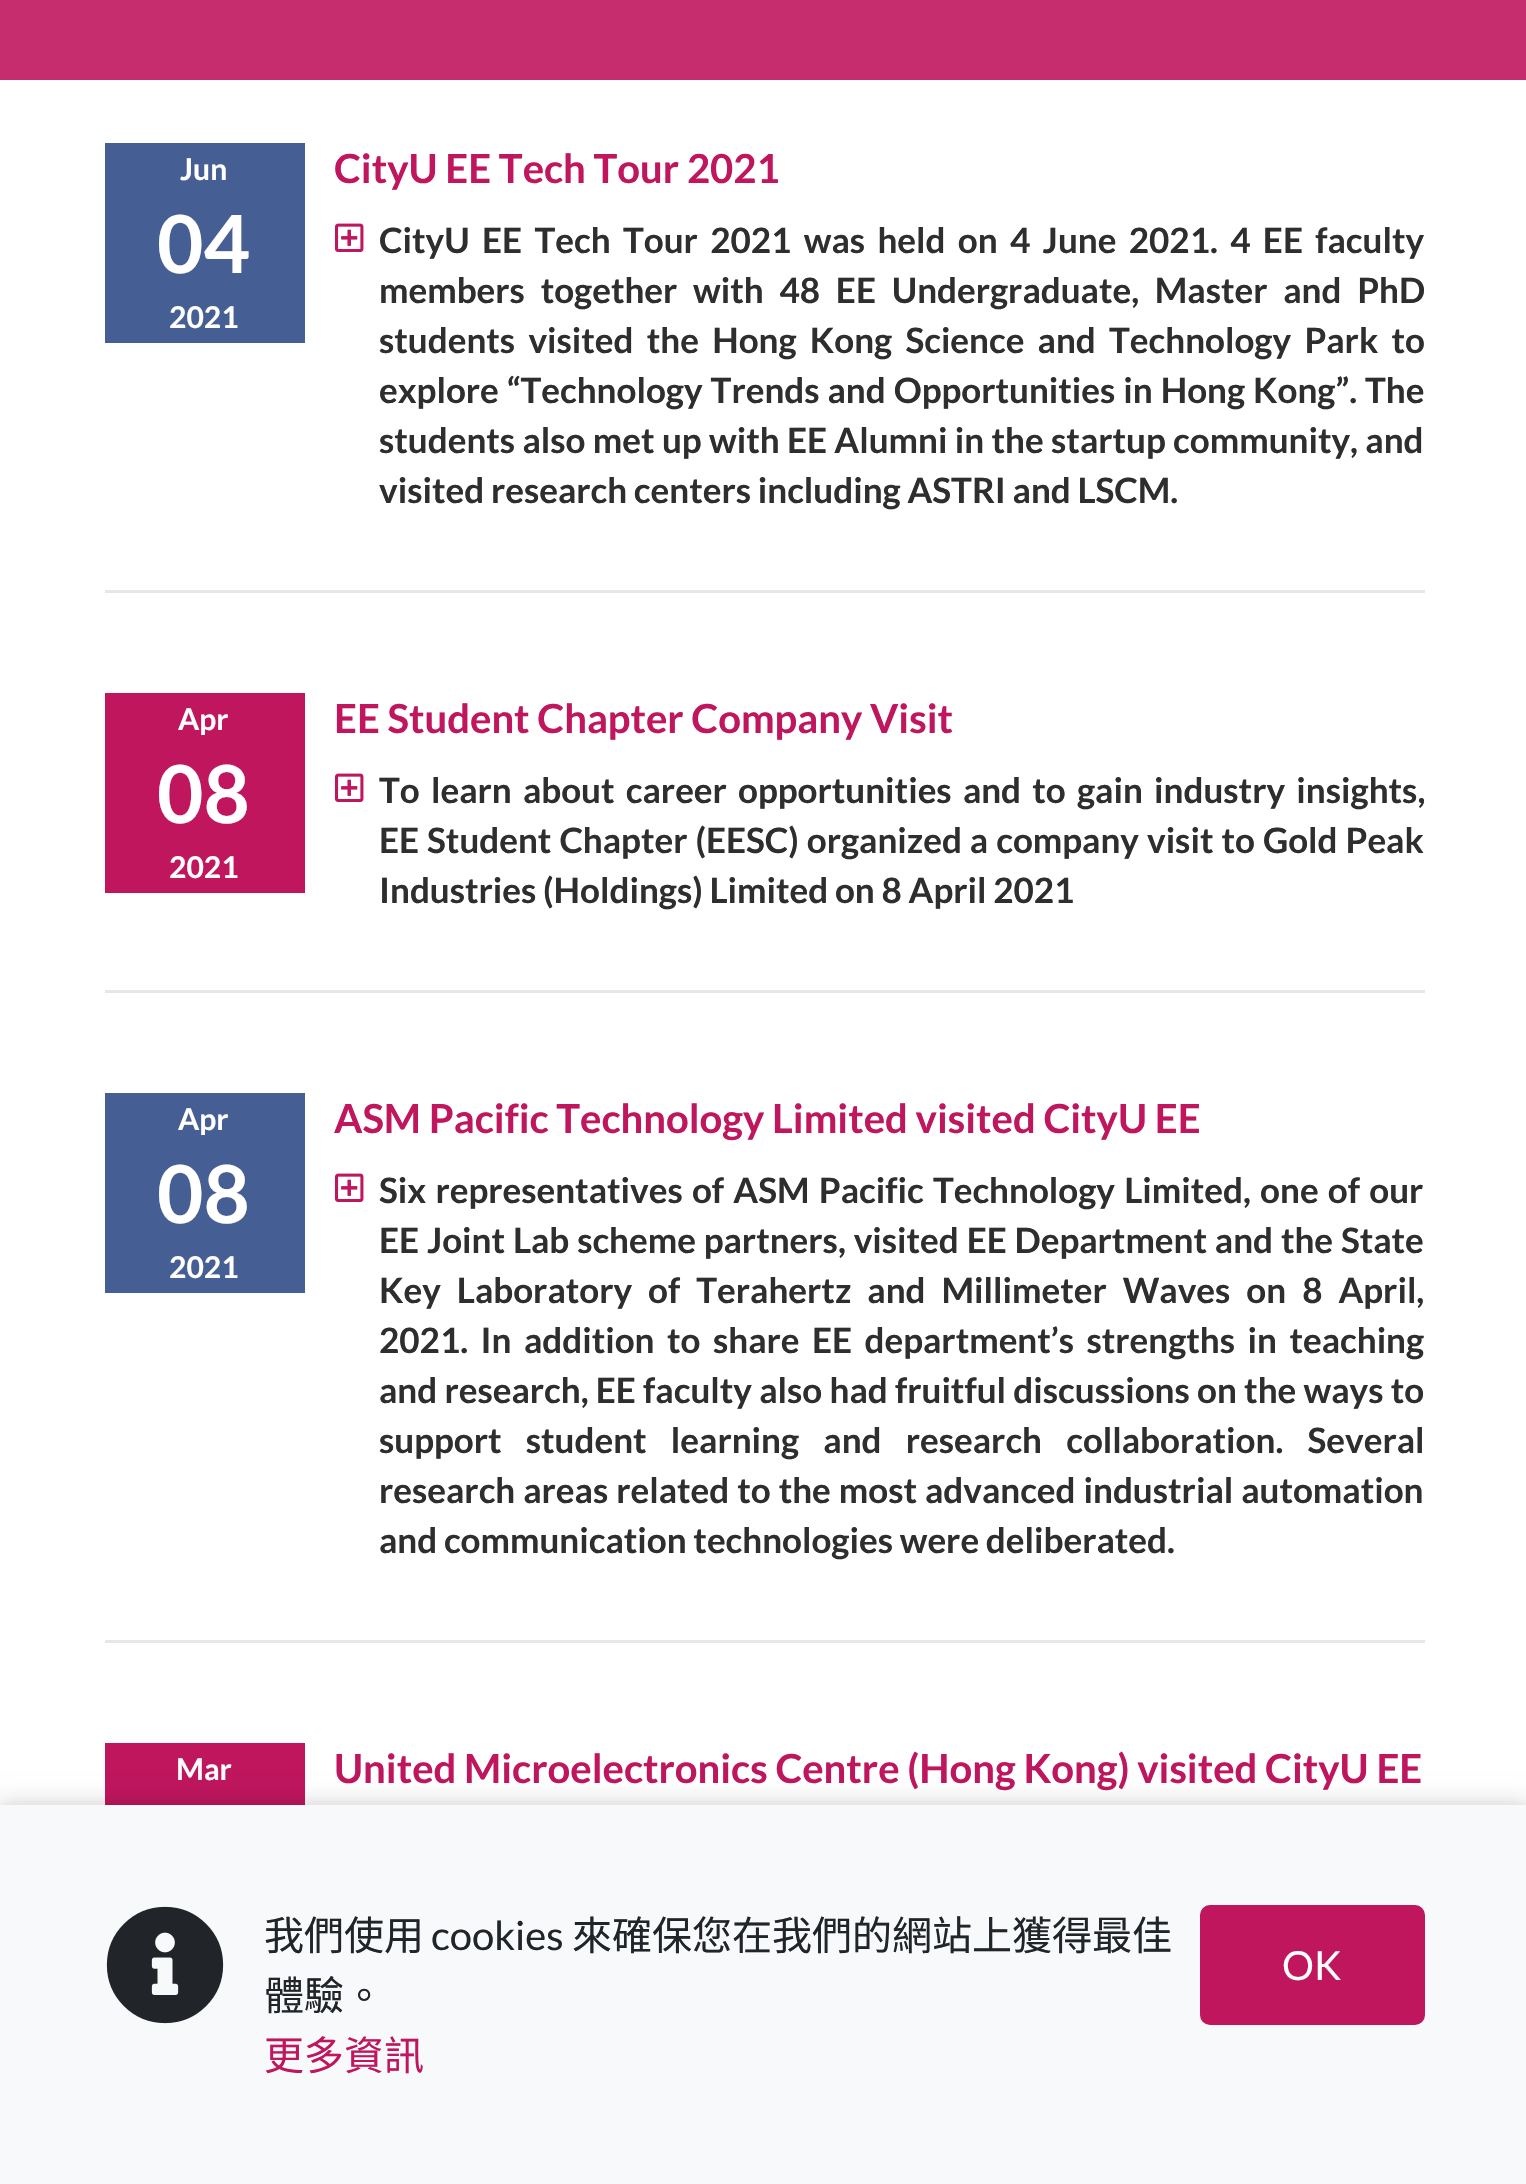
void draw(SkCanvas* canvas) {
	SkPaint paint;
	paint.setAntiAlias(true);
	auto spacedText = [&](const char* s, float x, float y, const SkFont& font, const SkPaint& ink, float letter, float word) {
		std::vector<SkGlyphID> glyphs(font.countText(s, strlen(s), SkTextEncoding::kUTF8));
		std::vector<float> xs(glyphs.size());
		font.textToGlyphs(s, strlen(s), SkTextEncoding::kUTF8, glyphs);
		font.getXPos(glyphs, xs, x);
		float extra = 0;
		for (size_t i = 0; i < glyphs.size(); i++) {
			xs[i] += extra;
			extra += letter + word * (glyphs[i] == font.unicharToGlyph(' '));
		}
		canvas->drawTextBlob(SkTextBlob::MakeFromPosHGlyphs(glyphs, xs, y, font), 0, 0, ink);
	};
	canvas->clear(0xffffffff);
	paint.setColor(0xffc62d6e);
	canvas->drawRect(SkRect::MakeXYWH(0, 0, 1526, 80), paint);
	paint.setColor(0xffe7e7e7);
	canvas->drawRect(SkRect::MakeXYWH(105, 590, 1320, 3), paint);
	paint.setColor(0xff455e93);
	canvas->drawRect(SkRect::MakeXYWH(105, 143, 200, 200), paint);
	SkFont f1(fontMgr->matchFamilyStyle("Lato", SkFontStyle::Bold()), 30);
	f1.setSubpixel(true);
	paint.setColor(0xffffffff);
	canvas->drawString("Jun", 180, 180, f1, paint);
	SkFont f2(fontMgr->matchFamilyStyle("Lato", SkFontStyle::Bold()), 80);
	f2.setSubpixel(true);
	canvas->drawString("04", 157, 273, f2, paint);
	canvas->drawString("2021", 169, 328, f1, paint);
	SkFont f3(fontMgr->matchFamilyStyle("Lato", SkFontStyle::Bold()), 40);
	f3.setSubpixel(true);
	paint.setColor(0xffbf165e);
	canvas->drawString("CityU EE Tech Tour 2021", 334, 183, f3, paint);
	canvas->drawImageRect(SkImages::DeferredFromEncodedData(SkData::MakeFromFileName("img1.png")), SkRect::MakeXYWH(335, 223, 29, 29), SkSamplingOptions());
	SkFont f4(fontMgr->matchFamilyStyle("Lato", SkFontStyle::Bold()), 35);
	f4.setSubpixel(true);
	paint.setColor(0xff2e2e2e);
	spacedText("CityU EE Tech Tour 2021 was held on 4 June 2021. 4 EE faculty", 379, 253, f4, paint, 0, 5.6);
	spacedText("members together with 48 EE Undergraduate, Master and PhD", 379, 303, f4, paint, 0, 9);
	spacedText("students visited the Hong Kong Science and Technology Park to", 379, 353, f4, paint, 0, 6.5);
	spacedText("explore “Technology Trends and Opportunities in Hong Kong”. The", 379, 403, f4, paint, 0, 1.25);
	spacedText("students also met up with EE Alumni in the startup community, and", 379, 453, f4, paint, 0, 0.6);
	canvas->drawString("visited research centers including ASTRI and LSCM.", 379, 503, f4, paint);
	paint.setColor(0xffe7e7e7);
	canvas->drawRect(SkRect::MakeXYWH(105, 990, 1320, 3), paint);
	paint.setColor(0xffbf165e);
	canvas->drawRect(SkRect::MakeXYWH(105, 693, 200, 200), paint);
	paint.setColor(0xffffffff);
	canvas->drawString("Apr", 178, 730, f1, paint);
	canvas->drawString("08", 157, 823, f2, paint);
	canvas->drawString("2021", 169, 878, f1, paint);
	paint.setColor(0xffbf165e);
	canvas->drawString("EE Student Chapter Company Visit", 334, 733, f3, paint);
	canvas->drawImageRect(SkImages::DeferredFromEncodedData(SkData::MakeFromFileName("img1.png")), SkRect::MakeXYWH(335, 773, 29, 29), SkSamplingOptions());
	paint.setColor(0xff2e2e2e);
	spacedText("To learn about career opportunities and to gain industry insights,", 379, 803, f4, paint, 0, 4.5);
	spacedText("EE Student Chapter (EESC) organized a company visit to Gold Peak", 379, 853, f4, paint, 0, 1.25);
	canvas->drawString("Industries (Holdings) Limited on 8 April 2021", 379, 903, f4, paint);
	paint.setColor(0xffe7e7e7);
	canvas->drawRect(SkRect::MakeXYWH(105, 1640, 1320, 3), paint);
	paint.setColor(0xff455e93);
	canvas->drawRect(SkRect::MakeXYWH(105, 1093, 200, 200), paint);
	paint.setColor(0xffffffff);
	canvas->drawString("Apr", 178, 1130, f1, paint);
	canvas->drawString("08", 157, 1223, f2, paint);
	canvas->drawString("2021", 169, 1278, f1, paint);
	paint.setColor(0xffbf165e);
	canvas->drawString("ASM Pacific Technology Limited visited CityU EE", 334, 1133, f3, paint);
	canvas->drawImageRect(SkImages::DeferredFromEncodedData(SkData::MakeFromFileName("img1.png")), SkRect::MakeXYWH(335, 1173, 29, 29), SkSamplingOptions());
	paint.setColor(0xff2e2e2e);
	spacedText("Six representatives of ASM Pacific Technology Limited, one of our", 379, 1203, f4, paint, 0, 2.5);
	spacedText("EE Joint Lab scheme partners, visited EE Department and the State", 379, 1253, f4, paint, 0, 1.1);
	spacedText("Key Laboratory of Terahertz and Millimeter Waves on 8 April,", 379, 1303, f4, paint, 0, 9.25);
	spacedText("2021. In addition to share EE department’s strengths in teaching", 379, 1353, f4, paint, 0, 5.75);
	spacedText("and research, EE faculty also had fruitful discussions on the ways to", 379, 1403, f4, paint, 0, 0.5);
	spacedText("support student learning and research collaboration. Several", 379, 1453, f4, paint, 0, 17.5);
	spacedText("research areas related to the most advanced industrial automation", 379, 1503, f4, paint, 0, 1.25);
	canvas->drawString("and communication technologies were deliberated.", 379, 1553, f4, paint);
	paint.setColor(0xffbf165e);
	canvas->drawRect(SkRect::MakeXYWH(105, 1743, 200, 62), paint);
	paint.setColor(0xffffffff);
	canvas->drawString("Mar", 176, 1780, f1, paint);
	paint.setColor(0xffbf165e);
	canvas->drawString("United Microelectronics Centre (Hong Kong) visited CityU EE", 334, 1783, f3, paint);
	paint.setColor(0x1a000000);
	paint.setMaskFilter(SkMaskFilter::MakeBlur(kNormal_SkBlurStyle, 10));
	canvas->drawRect(SkRect::MakeXYWH(0, 1800, 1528, 380), paint);
	paint.setMaskFilter(nullptr);
	paint.setColor(0x0d000000);
	paint.setMaskFilter(SkMaskFilter::MakeBlur(kNormal_SkBlurStyle, 5));
	canvas->drawRect(SkRect::MakeXYWH(0, 1803, 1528, 380), paint);
	paint.setMaskFilter(nullptr);
	paint.setColor(0xfff8f9fa);
	canvas->drawRect(SkRect::MakeXYWH(0, 1805, 1526, 379), paint);
	canvas->drawImageRect(SkImages::DeferredFromEncodedData(SkData::MakeFromFileName("img2.png")), SkRect::MakeXYWH(106, 1906, 118, 118), SkSamplingOptions());
	SkFont f5(fontMgr->matchFamilyStyle("Noto Sans CJK HK", SkFontStyle::Normal()), 40);
	f5.setSubpixel(true);
	paint.setColor(0xff212529);
	canvas->drawString("我們使用", 264, 1950, f5, paint);
	SkFont f6(fontMgr->matchFamilyStyle("Lato", SkFontStyle::Normal()), 40);
	f6.setSubpixel(true);
	canvas->drawString("cookies", 431, 1950, f6, paint);
	canvas->drawString("來確保您在我們的網站上獲得最佳", 572, 1950, f5, paint);
	canvas->drawString("體驗。", 264, 2010, f5, paint);
	paint.setColor(0xffbf165e);
	canvas->drawString("更多資訊", 264, 2070, f5, paint);
	canvas->drawRoundRect(SkRect::MakeXYWH(1201.5, 1906.5, 222, 117), 8.5, 8.5, paint);
	paint.setStroke(true);
	paint.setStrokeWidth(3);
	canvas->drawRoundRect(SkRect::MakeXYWH(1201.5, 1906.5, 222, 117), 8.5, 8.5, paint);
	paint.setStroke(false);
	paint.setColor(0xffffffff);
	canvas->drawString("OK", 1282, 1980, f6, paint);
}
